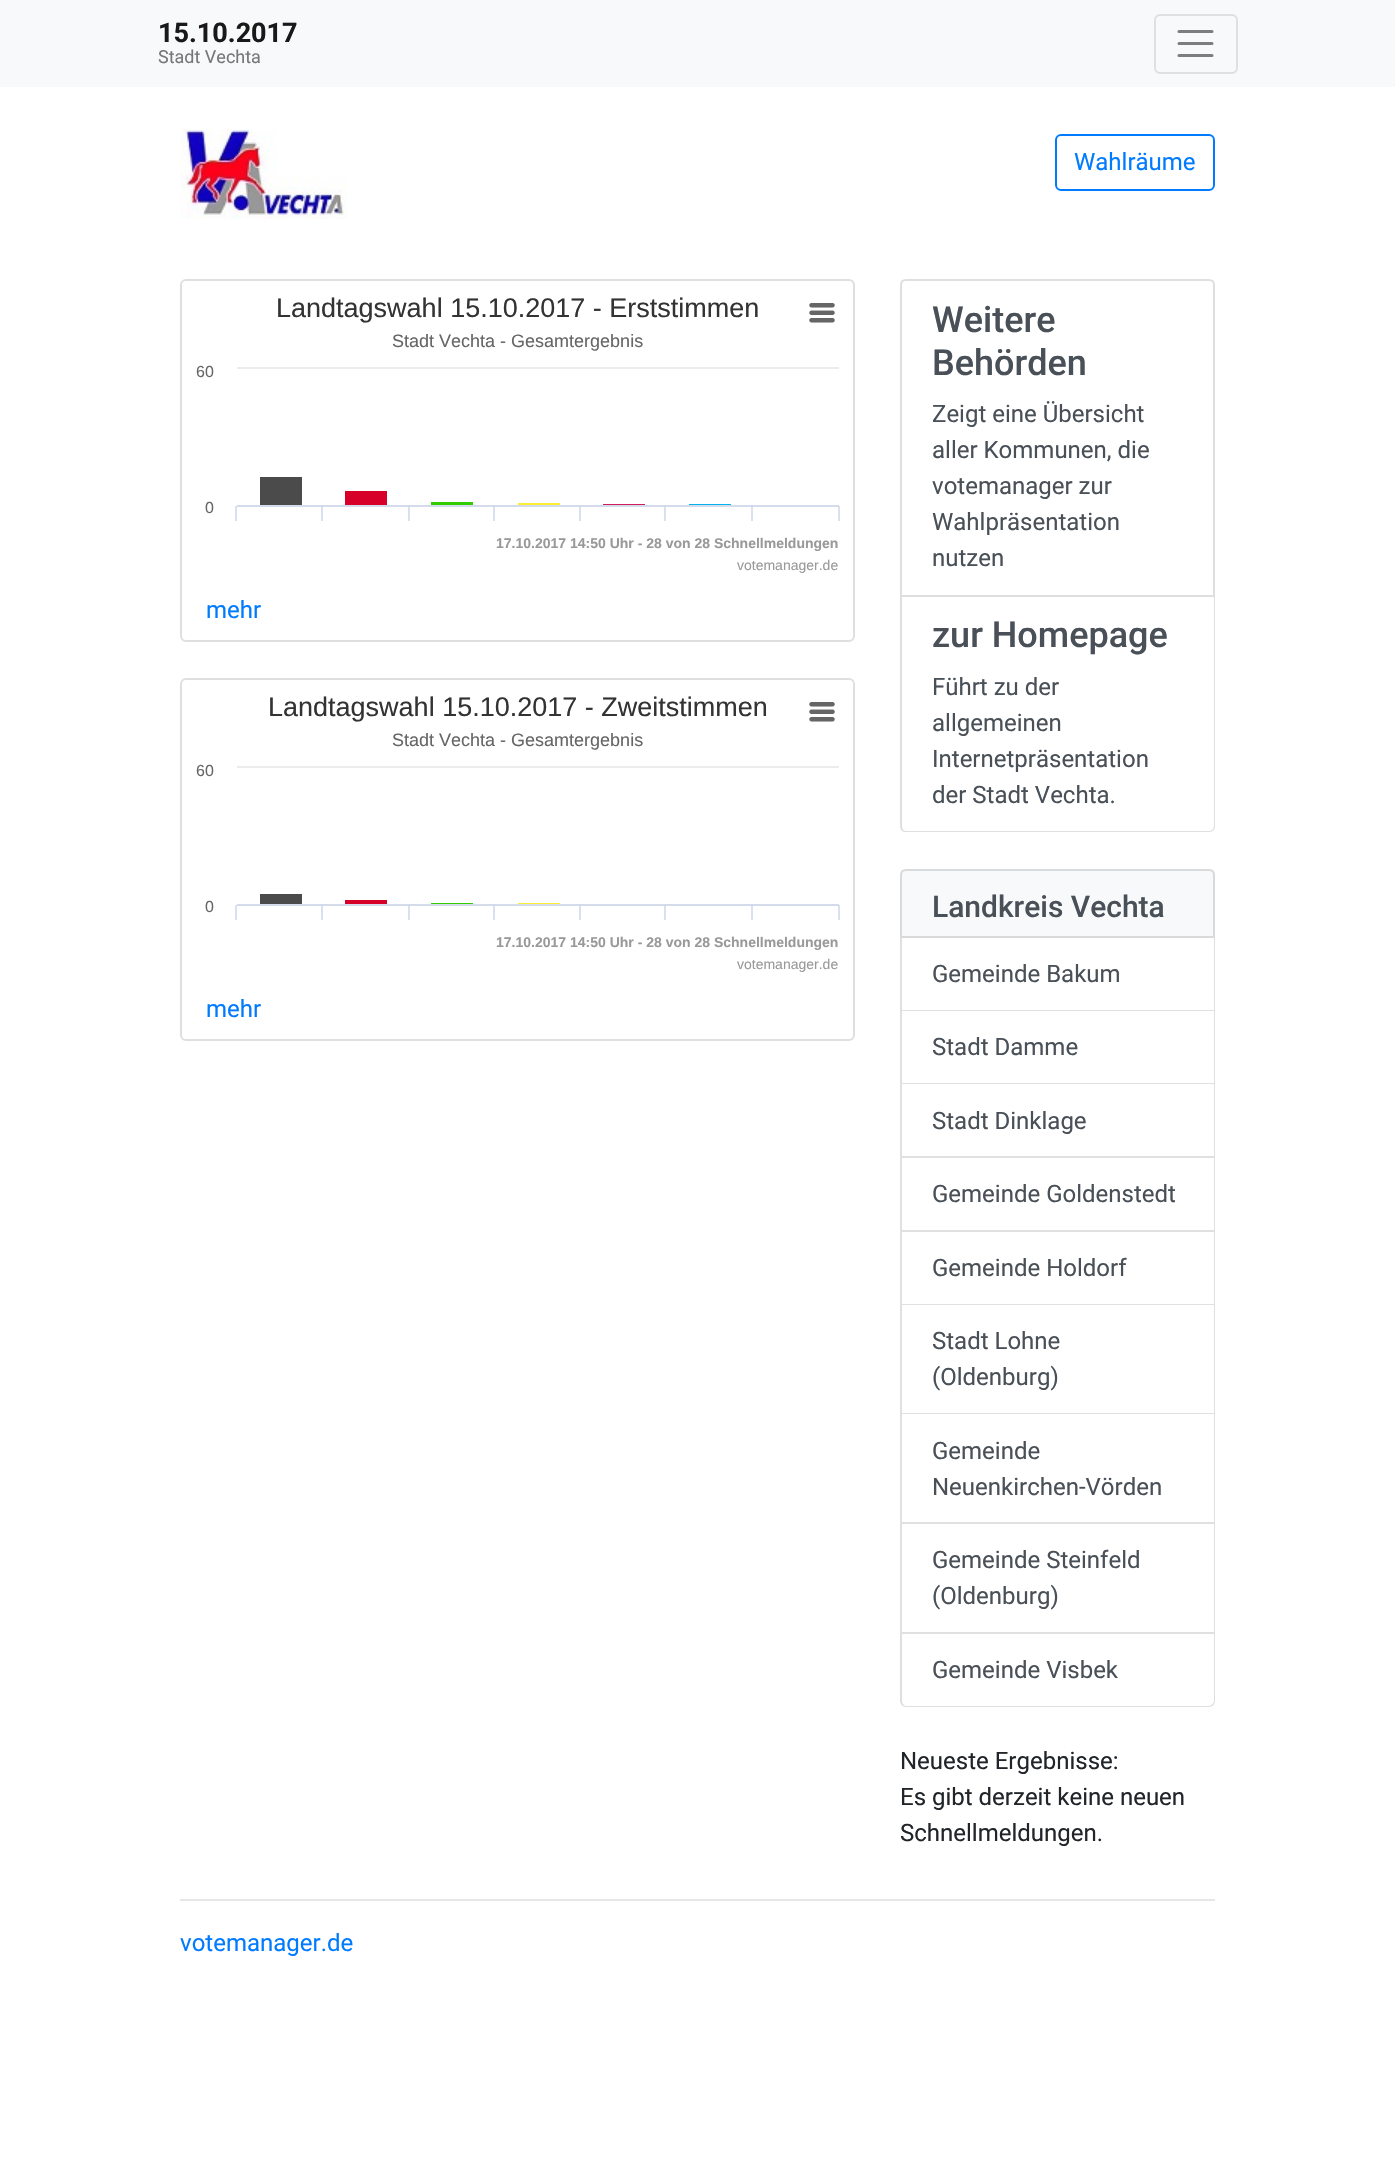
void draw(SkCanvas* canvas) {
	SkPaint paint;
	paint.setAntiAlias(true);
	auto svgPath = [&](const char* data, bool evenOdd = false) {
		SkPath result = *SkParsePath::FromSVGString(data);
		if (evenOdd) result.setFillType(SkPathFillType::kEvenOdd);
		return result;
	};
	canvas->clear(0xffffffff);
	paint.setColor(0xfff8f9fa);
	canvas->drawRect(SkRect::MakeXYWH(0, 0, 1395, 87), paint);
	SkFont f1(fontMgr->matchFamilyStyle("Roboto", SkFontStyle::Bold()), 27);
	f1.setSubpixel(true);
	paint.setColor(0xff191919);
	canvas->drawString("15.10.2017", 158, 42, f1, paint);
	SkFont f2(fontMgr->matchFamilyStyle("Roboto", SkFontStyle::Normal()), 18);
	f2.setSubpixel(true);
	paint.setColor(0xff777777);
	canvas->drawString("Stadt Vechta", 158, 63, f2, paint);
	paint.setStroke(true);
	paint.setStrokeWidth(2);
	paint.setColor(0xffdfe0e1);
	canvas->drawRoundRect(SkRect::MakeXYWH(1155, 15, 82, 58), 5, 5, paint);
	paint.setStrokeWidth(3);
	paint.setStrokeCap(SkPaint::kRound_Cap);
	paint.setColor(0xff7c7d7d);
	canvas->drawPath(svgPath("M1179 31.5H1212M1179 43.5H1212M1179 55.5H1212"), paint);
	canvas->drawImageRect(SkImages::DeferredFromEncodedData(SkData::MakeFromFileName("img1.png")), SkRect::MakeXYWH(180, 129, 168, 90), SkSamplingOptions());
	paint.setStrokeWidth(2);
	paint.setStrokeCap(SkPaint::kButt_Cap);
	paint.setColor(0xff007bff);
	canvas->drawRoundRect(SkRect::MakeXYWH(1056, 135, 158, 55), 5, 5, paint);
	SkFont f3(fontMgr->matchFamilyStyle("Roboto", SkFontStyle::Normal()), 24);
	f3.setSubpixel(true);
	paint.setStroke(false);
	canvas->drawString("Wahlräume", 1074, 170, f3, paint);
	paint.setStroke(true);
	paint.setColor(0xffdfdfdf);
	canvas->drawRoundRect(SkRect::MakeXYWH(181, 280, 673, 361), 5, 5, paint);
	canvas->drawImageRect(SkImages::DeferredFromEncodedData(SkData::MakeFromFileName("img2.png")), SkRect::MakeXYWH(235, 303, 605, 218), SkSamplingOptions());
	SkFont f4(fontMgr->matchFamilyStyle("Liberation Sans", SkFontStyle::Normal()), 27);
	f4.setSubpixel(true);
	paint.setStroke(false);
	paint.setColor(0xff333333);
	canvas->drawString("Landtagswahl 15.10.2017 - Erststimmen", 276, 317, f4, paint);
	SkFont f5(fontMgr->matchFamilyStyle("Liberation Sans", SkFontStyle::Normal()), 18);
	f5.setSubpixel(true);
	paint.setColor(0xff666666);
	canvas->drawString("Stadt Vechta - Gesamtergebnis", 392, 347, f5, paint);
	SkFont f6(fontMgr->matchFamilyStyle("Liberation Sans", SkFontStyle::Normal()), 16);
	f6.setSubpixel(true);
	canvas->drawString("60", 196, 377, f6, paint);
	canvas->drawString("0", 205, 513, f6, paint);
	SkFont f7(fontMgr->matchFamilyStyle("Liberation Sans", SkFontStyle::Bold()), 14);
	f7.setSubpixel(true);
	paint.setColor(0xff999999);
	canvas->drawString("17.10.2017 14:50 Uhr - 28 von 28 Schnellmeldungen", 496, 548, f7, paint);
	SkFont f8(fontMgr->matchFamilyStyle("Liberation Sans", SkFontStyle::Normal()), 14);
	f8.setSubpixel(true);
	canvas->drawString("votemanager.de", 737, 570, f8, paint);
	paint.setColor(0xff007bff);
	canvas->drawString("mehr", 206, 618, f3, paint);
	paint.setStroke(true);
	paint.setColor(0xffdfdfdf);
	canvas->drawRoundRect(SkRect::MakeXYWH(181, 679, 673, 361), 5, 5, paint);
	canvas->drawImageRect(SkImages::DeferredFromEncodedData(SkData::MakeFromFileName("img3.png")), SkRect::MakeXYWH(235, 702, 605, 218), SkSamplingOptions());
	paint.setStroke(false);
	paint.setColor(0xff333333);
	canvas->drawString("Landtagswahl 15.10.2017 - Zweitstimmen", 268, 716, f4, paint);
	paint.setColor(0xff666666);
	canvas->drawString("Stadt Vechta - Gesamtergebnis", 392, 746, f5, paint);
	canvas->drawString("60", 196, 776, f6, paint);
	canvas->drawString("0", 205, 912, f6, paint);
	paint.setColor(0xff999999);
	canvas->drawString("17.10.2017 14:50 Uhr - 28 von 28 Schnellmeldungen", 496, 947, f7, paint);
	canvas->drawString("votemanager.de", 737, 969, f8, paint);
	paint.setColor(0xff007bff);
	canvas->drawString("mehr", 206, 1017, f3, paint);
	paint.setStroke(true);
	paint.setColor(0xffdfdfdf);
	canvas->drawPath(svgPath("M906 280H1209C1212 280 1214 282 1214 285V596H901V285C901 282 903 280 906 280Z"), paint);
	SkFont f9(fontMgr->matchFamilyStyle("Roboto", SkFontStyle(500, SkFontStyle::kNormal_Width, SkFontStyle::kUpright_Slant)), 36);
	f9.setSubpixel(true);
	paint.setStroke(false);
	paint.setColor(0xff495057);
	canvas->drawString("Weitere", 932, 332, f9, paint);
	canvas->drawString("Behörden", 932, 375, f9, paint);
	canvas->drawString("Zeigt eine Übersicht", 932, 422, f3, paint);
	canvas->drawString("aller Kommunen, die", 932, 458, f3, paint);
	canvas->drawString("votemanager zur", 932, 494, f3, paint);
	canvas->drawString("Wahlpräsentation", 932, 530, f3, paint);
	canvas->drawString("nutzen", 932, 566, f3, paint);
	paint.setColor(0xffdfdfdf);
	canvas->drawPath(svgPath("M900 597H1215V826C1215 830 1212 832 1209 832H906C903 832 900 830 900 826ZM902 597H1214V826C1214 829 1211 831 1209 831H906C904 831 902 829 902 826Z", true), paint);
	paint.setColor(0xff495057);
	canvas->drawString("zur Homepage", 932, 647, f9, paint);
	canvas->drawString("Führt zu der", 932, 695, f3, paint);
	canvas->drawString("allgemeinen", 932, 731, f3, paint);
	canvas->drawString("Internetpräsentation", 932, 767, f3, paint);
	canvas->drawString("der Stadt Vechta.", 932, 803, f3, paint);
	paint.setColor(0xfff8f9fa);
	canvas->drawPath(svgPath("M906 870H1209C1212 870 1214 872 1214 875V937H901V875C901 872 903 870 906 870Z"), paint);
	paint.setStroke(true);
	paint.setColor(0xffd9dadb);
	canvas->drawPath(svgPath("M906 870H1209C1212 870 1214 872 1214 875V937H901V875C901 872 903 870 906 870Z"), paint);
	SkFont f10(fontMgr->matchFamilyStyle("Roboto", SkFontStyle(500, SkFontStyle::kNormal_Width, SkFontStyle::kUpright_Slant)), 30);
	f10.setSubpixel(true);
	paint.setStroke(false);
	paint.setColor(0xff495057);
	canvas->drawString("Landkreis Vechta", 932, 917, f10, paint);
	paint.setColor(0xffdfdfdf);
	canvas->drawPath(svgPath("M1215 938V1011L1214 1010V938Z"), paint);
	paint.setColor(0x1f000000);
	canvas->drawPath(svgPath("M1215 1011H900L902 1010H1214Z"), paint);
	canvas->drawPath(svgPath("M900 1011V938H902V1010Z"), paint);
	paint.setColor(0xff495057);
	canvas->drawString("Gemeinde Bakum", 932, 982, f3, paint);
	paint.setColor(0xffdfdfdf);
	canvas->drawPath(svgPath("M1215 1011V1084L1214 1083V1011Z"), paint);
	paint.setColor(0x1f000000);
	canvas->drawPath(svgPath("M1215 1084H900L902 1083H1214Z"), paint);
	canvas->drawPath(svgPath("M900 1084V1011H902V1083Z"), paint);
	paint.setColor(0xff495057);
	canvas->drawString("Stadt Damme", 932, 1055, f3, paint);
	paint.setColor(0xffdfdfdf);
	canvas->drawPath(svgPath("M1215 1084V1158L1214 1156V1084Z"), paint);
	paint.setColor(0x1f000000);
	canvas->drawPath(svgPath("M1215 1158H900L902 1156H1214Z"), paint);
	canvas->drawPath(svgPath("M900 1158V1084H902V1156Z"), paint);
	paint.setColor(0xff495057);
	canvas->drawString("Stadt Dinklage", 932, 1129, f3, paint);
	paint.setColor(0xffdfdfdf);
	canvas->drawPath(svgPath("M1215 1158V1232L1214 1230V1158Z"), paint);
	paint.setColor(0x1f000000);
	canvas->drawPath(svgPath("M1215 1232H900L902 1230H1214Z"), paint);
	canvas->drawPath(svgPath("M900 1232V1158H902V1230Z"), paint);
	paint.setColor(0xff495057);
	canvas->drawString("Gemeinde Goldenstedt", 932, 1202, f3, paint);
	paint.setColor(0xffdfdfdf);
	canvas->drawPath(svgPath("M1215 1232V1305L1214 1304V1232Z"), paint);
	paint.setColor(0x1f000000);
	canvas->drawPath(svgPath("M1215 1305H900L902 1304H1214Z"), paint);
	canvas->drawPath(svgPath("M900 1305V1232H902V1304Z"), paint);
	paint.setColor(0xff495057);
	canvas->drawString("Gemeinde Holdorf", 932, 1276, f3, paint);
	paint.setColor(0xffdfdfdf);
	canvas->drawPath(svgPath("M1215 1305V1414L1214 1413V1305Z"), paint);
	paint.setColor(0x1f000000);
	canvas->drawPath(svgPath("M1215 1414H900L902 1413H1214Z"), paint);
	canvas->drawPath(svgPath("M900 1414V1305H902V1413Z"), paint);
	paint.setColor(0xff495057);
	canvas->drawString("Stadt Lohne", 932, 1349, f3, paint);
	canvas->drawString("(Oldenburg)", 932, 1385, f3, paint);
	paint.setColor(0xffdfdfdf);
	canvas->drawPath(svgPath("M1215 1414V1524L1214 1522V1414Z"), paint);
	paint.setColor(0x1f000000);
	canvas->drawPath(svgPath("M1215 1524H900L902 1522H1214Z"), paint);
	canvas->drawPath(svgPath("M900 1524V1414H902V1522Z"), paint);
	paint.setColor(0xff495057);
	canvas->drawString("Gemeinde", 932, 1459, f3, paint);
	canvas->drawString("Neuenkirchen-Vörden", 932, 1495, f3, paint);
	paint.setColor(0xffdfdfdf);
	canvas->drawPath(svgPath("M1215 1524V1634L1214 1632V1524Z"), paint);
	paint.setColor(0x1f000000);
	canvas->drawPath(svgPath("M1215 1634H900L902 1632H1214Z"), paint);
	canvas->drawPath(svgPath("M900 1634V1524H902V1632Z"), paint);
	paint.setColor(0xff495057);
	canvas->drawString("Gemeinde Steinfeld", 932, 1568, f3, paint);
	canvas->drawString("(Oldenburg)", 932, 1604, f3, paint);
	paint.setColor(0xffdfdfdf);
	canvas->drawPath(svgPath("M900 1634H1215V1701C1215 1704 1212 1707 1209 1707H906C903 1707 900 1704 900 1701ZM902 1634H1214V1701C1214 1703 1211 1706 1209 1706H906C904 1706 902 1703 902 1701Z", true), paint);
	paint.setColor(0xff495057);
	canvas->drawString("Gemeinde Visbek", 932, 1678, f3, paint);
	paint.setColor(0xff212529);
	canvas->drawString("Neueste Ergebnisse:", 900, 1769, f3, paint);
	canvas->drawString("Es gibt derzeit keine neuen", 900, 1805, f3, paint);
	canvas->drawString("Schnellmeldungen.", 900, 1841, f3, paint);
	paint.setColor(0xffe6e6e6);
	canvas->drawRect(SkRect::MakeXYWH(180, 1899, 1035, 2), paint);
	paint.setColor(0xff007bff);
	canvas->drawString("votemanager.de", 180, 1951, f3, paint);
}
